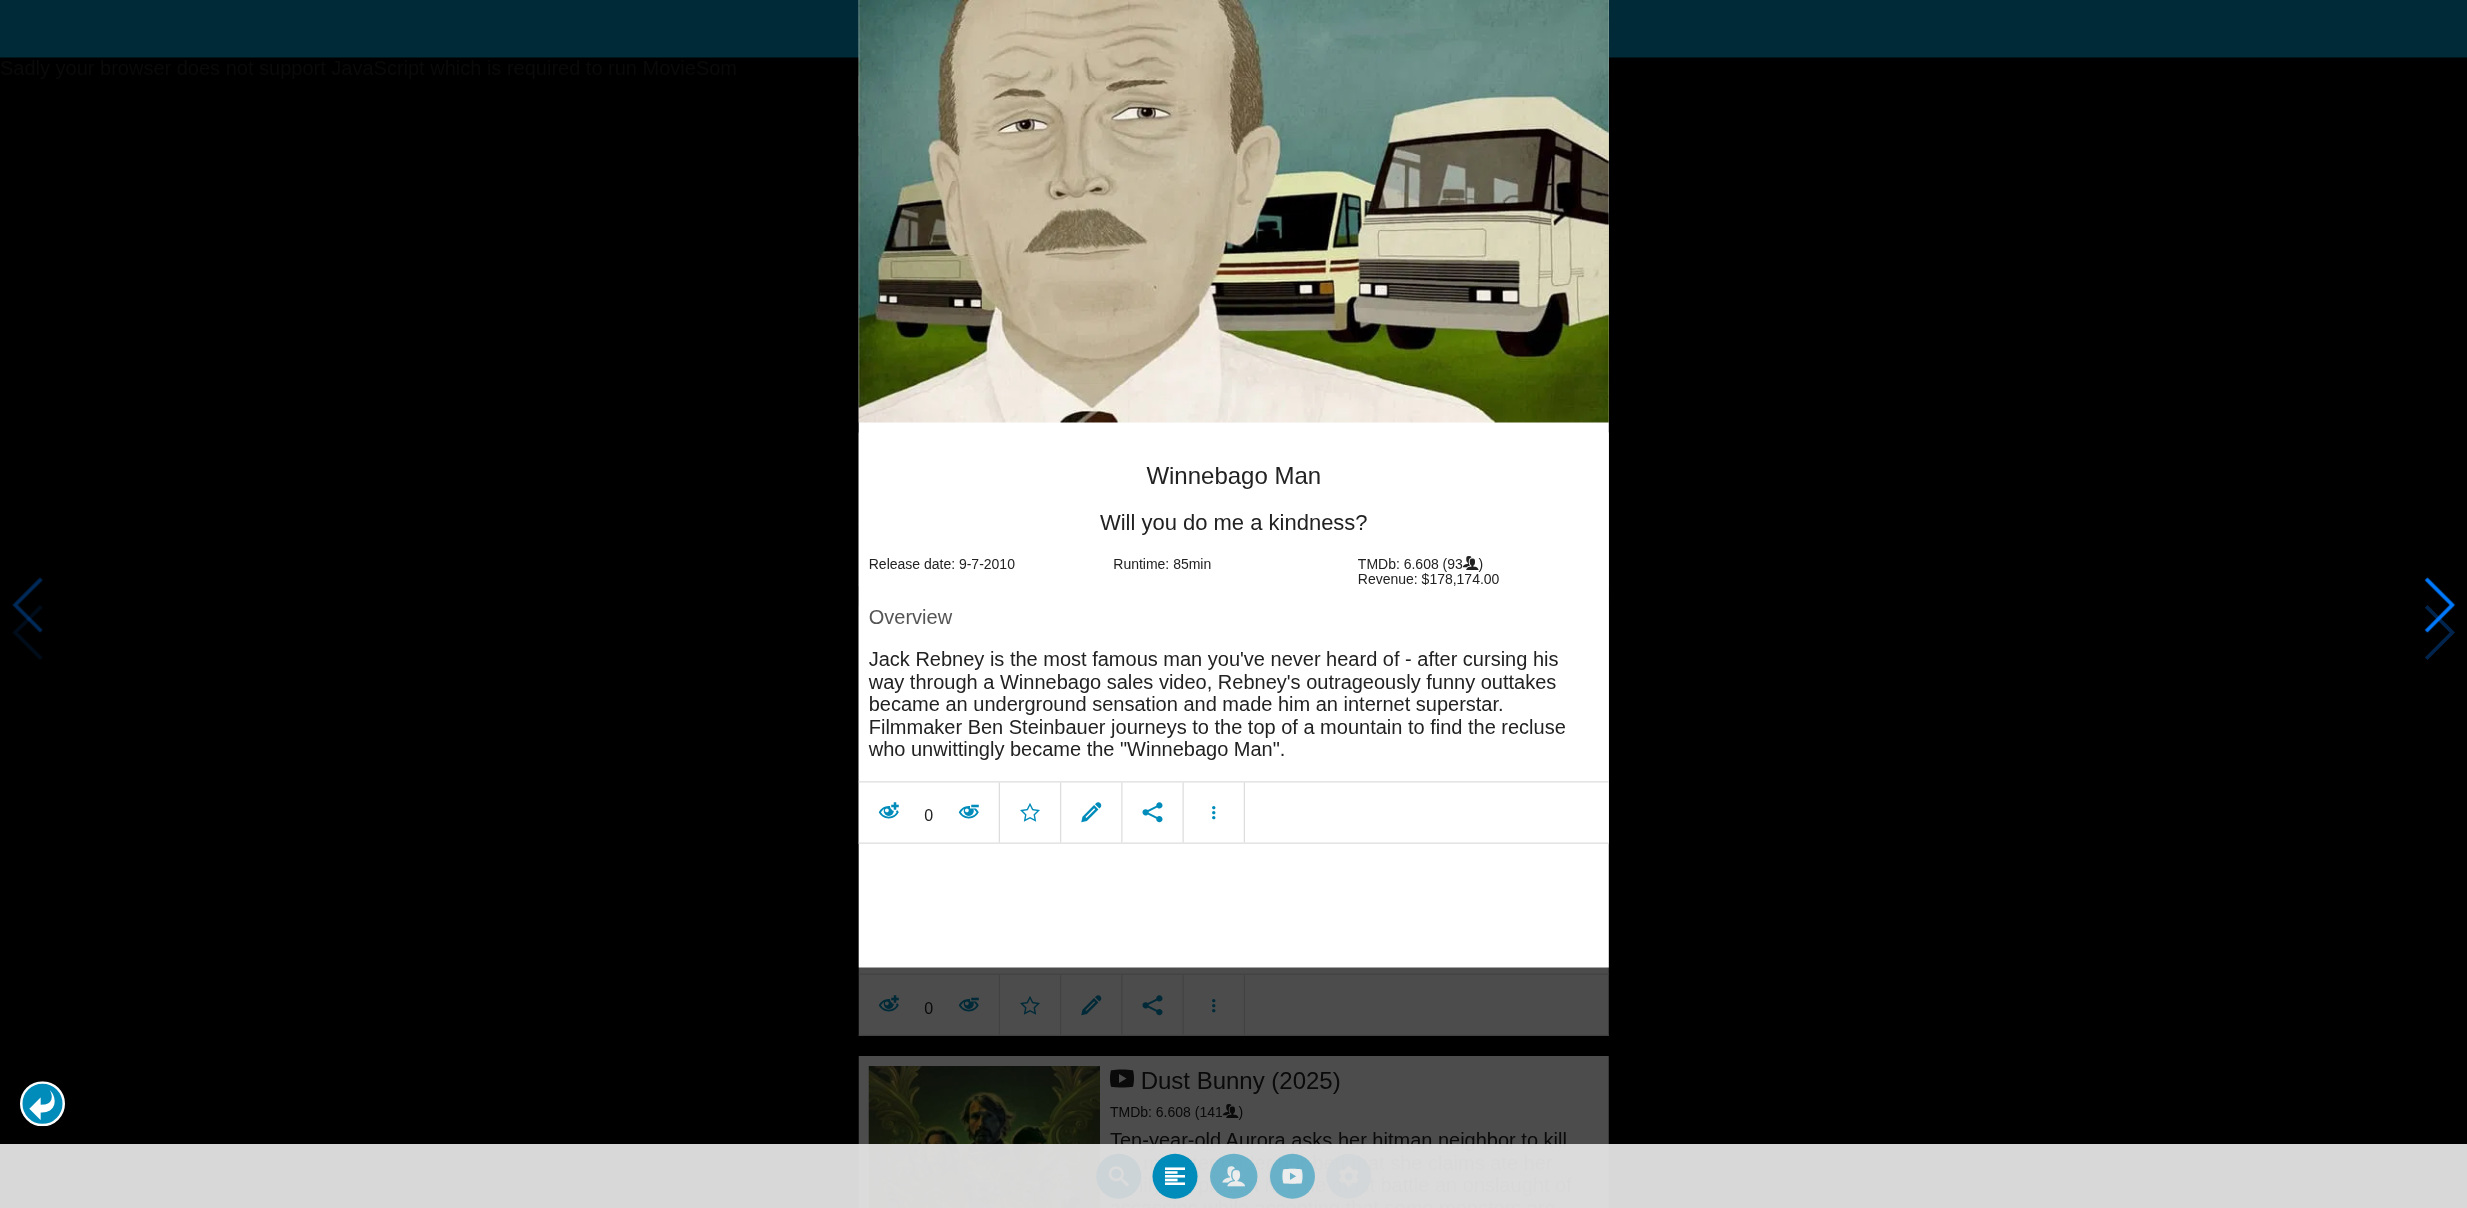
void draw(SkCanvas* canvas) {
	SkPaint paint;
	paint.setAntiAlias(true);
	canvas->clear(0xffffffff);
	canvas->drawImageRect(SkImages::DeferredFromEncodedData(SkData::MakeFromFileName("img1.png")), SkRect::MakeXYWH(0, 0, 2467, 1208), SkSamplingOptions());
}
